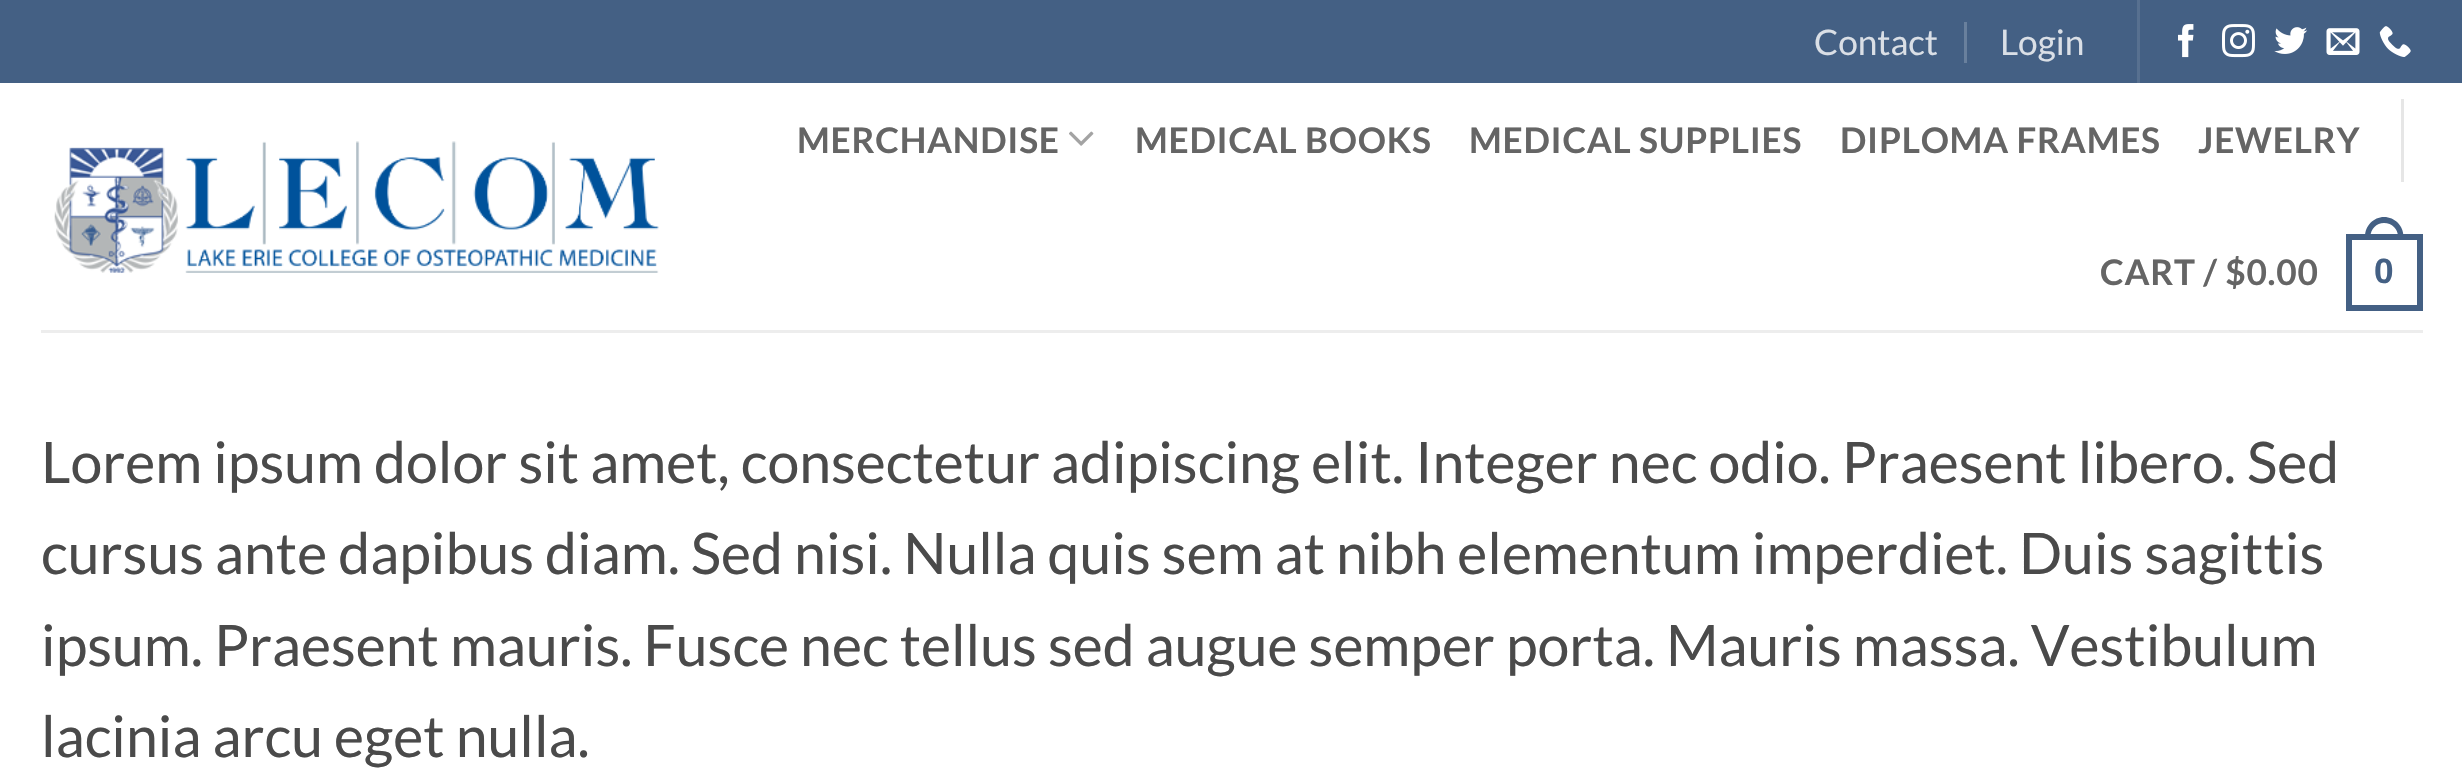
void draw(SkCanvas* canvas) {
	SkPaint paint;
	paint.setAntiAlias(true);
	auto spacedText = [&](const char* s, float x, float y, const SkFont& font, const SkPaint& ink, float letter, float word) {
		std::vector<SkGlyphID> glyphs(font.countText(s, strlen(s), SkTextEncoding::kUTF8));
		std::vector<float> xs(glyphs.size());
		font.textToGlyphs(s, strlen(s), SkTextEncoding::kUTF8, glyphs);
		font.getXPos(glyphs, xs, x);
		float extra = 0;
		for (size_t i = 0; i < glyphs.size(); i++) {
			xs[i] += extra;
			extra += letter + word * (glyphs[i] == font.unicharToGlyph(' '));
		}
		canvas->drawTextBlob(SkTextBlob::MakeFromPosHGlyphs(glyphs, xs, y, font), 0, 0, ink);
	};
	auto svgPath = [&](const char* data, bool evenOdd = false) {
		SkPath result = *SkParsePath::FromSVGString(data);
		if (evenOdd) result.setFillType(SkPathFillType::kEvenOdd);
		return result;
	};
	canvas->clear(0xffffffff);
	paint.setColor(0xff446084);
	canvas->drawRect(SkRect::MakeXYWH(0, 0, 2462, 83), paint);
	SkFont f1(fontMgr->matchFamilyStyle("Lato", SkFontStyle::Normal()), 35.25);
	f1.setSubpixel(true);
	paint.setColor(0xffdadfe6);
	canvas->drawString("Contact", 1814, 55, f1, paint);
	paint.setColor(0xff69809d);
	canvas->drawRect(SkRect::MakeXYWH(1964, 22, 3, 41), paint);
	paint.setColor(0xffdadfe6);
	canvas->drawString("Login", 2000, 55, f1, paint);
	paint.setColor(0xff577090);
	canvas->drawRect(SkRect::MakeXYWH(2137, 0, 3, 83), paint);
	canvas->drawImageRect(SkImages::DeferredFromEncodedData(SkData::MakeFromFileName("img1.png")), SkRect::MakeXYWH(2178, 24, 16, 34), SkSamplingOptions());
	canvas->drawImageRect(SkImages::DeferredFromEncodedData(SkData::MakeFromFileName("img2.png")), SkRect::MakeXYWH(2222, 24, 33, 34), SkSamplingOptions());
	canvas->drawImageRect(SkImages::DeferredFromEncodedData(SkData::MakeFromFileName("img3.png")), SkRect::MakeXYWH(2274, 27, 34, 27), SkSamplingOptions());
	canvas->drawImageRect(SkImages::DeferredFromEncodedData(SkData::MakeFromFileName("img4.png")), SkRect::MakeXYWH(2326, 28, 34, 27), SkSamplingOptions());
	canvas->drawImageRect(SkImages::DeferredFromEncodedData(SkData::MakeFromFileName("img5.png")), SkRect::MakeXYWH(2379, 26, 32, 31), SkSamplingOptions());
	canvas->drawImageRect(SkImages::DeferredFromEncodedData(SkData::MakeFromFileName("img6.png")), SkRect::MakeXYWH(54, 141, 605, 132), SkSamplingOptions());
	SkFont f2(fontMgr->matchFamilyStyle("Lato", SkFontStyle::Bold()), 35.25);
	f2.setSubpixel(true);
	paint.setColor(0xff656565);
	spacedText("MERCHANDISE", 797, 153, f2, paint, 0.75, 0);
	canvas->drawImageRect(SkImages::DeferredFromEncodedData(SkData::MakeFromFileName("img7.png")), SkRect::MakeXYWH(1069, 131, 25, 15), SkSamplingOptions());
	spacedText("MEDICAL BOOKS", 1135, 153, f2, paint, 0.75, 0);
	spacedText("MEDICAL SUPPLIES", 1469, 153, f2, paint, 0.75, 0);
	spacedText("DIPLOMA FRAMES", 1840, 153, f2, paint, 0.75, 0);
	spacedText("JEWELRY", 2198, 153, f2, paint, 0.75, 0);
	paint.setColor(0xffe6e6e6);
	canvas->drawRect(SkRect::MakeXYWH(2401, 99, 3, 83), paint);
	paint.setColor(0xff656565);
	spacedText("CART / $0.00", 2100, 285, f2, paint, 0.75, 0);
	paint.setStroke(true);
	paint.setStrokeWidth(6);
	paint.setColor(0xff446084);
	canvas->drawRect(SkRect::MakeXYWH(2349, 237, 71, 71), paint);
	paint.setStroke(false);
	canvas->drawPath(svgPath("M2384 217C2395 217 2403.5 226 2403.5 236.5V239H2365V236.5C2365 226 2373.5 217 2384 217ZM2384 223C2392 223 2398 229 2398 236.5V239H2370.5V236.5C2370.5 229 2376.5 223 2384 223Z", true), paint);
	SkFont f3(fontMgr->matchFamilyStyle("Liberation Sans", SkFontStyle::Bold()), 35.25);
	f3.setSubpixel(true);
	spacedText("0", 2374, 283, f3, paint, 0.75, 0);
	paint.setColor(0xffededed);
	canvas->drawRect(SkRect::MakeXYWH(41, 330, 2382, 3), paint);
	SkFont f4(fontMgr->matchFamilyStyle("Lato", SkFontStyle::Normal()), 57.2);
	f4.setSubpixel(true);
	paint.setColor(0xff4a4a4a);
	canvas->drawString("Lorem ipsum dolor sit amet, consectetur adipiscing elit. Integer nec odio. Praesent libero. Sed", 41, 483, f4, paint);
	canvas->drawString("cursus ante dapibus diam. Sed nisi. Nulla quis sem at nibh elementum imperdiet. Duis sagittis", 41, 574, f4, paint);
	canvas->drawString("ipsum. Praesent mauris. Fusce nec tellus sed augue semper porta. Mauris massa. Vestibulum", 41, 666, f4, paint);
	canvas->drawString("lacinia arcu eget nulla.", 41, 757, f4, paint);
}
